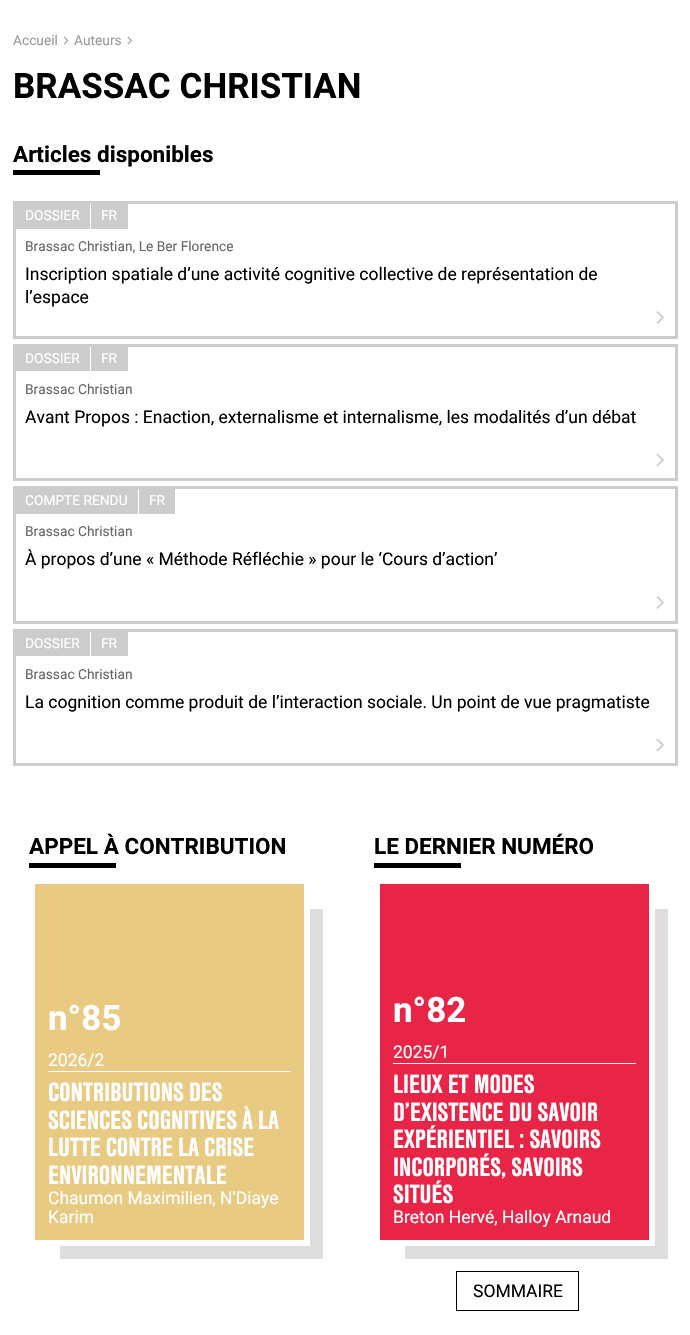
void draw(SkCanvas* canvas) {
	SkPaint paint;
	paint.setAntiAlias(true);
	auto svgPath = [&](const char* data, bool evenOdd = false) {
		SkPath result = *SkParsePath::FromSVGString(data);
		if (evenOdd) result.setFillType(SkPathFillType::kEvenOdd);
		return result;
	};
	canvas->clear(0xffffffff);
	SkFont f1(fontMgr->matchFamilyStyle("Roboto", SkFontStyle::Normal()), 13.75);
	f1.setSubpixel(true);
	paint.setColor(0xff999999);
	canvas->drawString("Accueil", 13, 45, f1, paint);
	canvas->drawImageRect(SkImages::DeferredFromEncodedData(SkData::MakeFromFileName("img1.png")), SkRect::MakeXYWH(63, 36, 6, 9), SkSamplingOptions());
	canvas->drawString("Auteurs", 74, 45, f1, paint);
	canvas->drawImageRect(SkImages::DeferredFromEncodedData(SkData::MakeFromFileName("img2.png")), SkRect::MakeXYWH(127, 36, 5, 9), SkSamplingOptions());
	SkFont f2(fontMgr->matchFamilyStyle("Roboto", SkFontStyle::Bold()), 35);
	f2.setSubpixel(true);
	paint.setColor(0xff000000);
	canvas->drawString("BRASSAC CHRISTIAN", 13, 98, f2, paint);
	SkFont f3(fontMgr->matchFamilyStyle("Roboto", SkFontStyle::Bold()), 22.5);
	f3.setSubpixel(true);
	canvas->drawString("Articles disponibles", 13, 162, f3, paint);
	canvas->drawRect(SkRect::MakeXYWH(13, 170, 87, 5), paint);
	paint.setStroke(true);
	paint.setStrokeWidth(3);
	paint.setColor(0xffcccccc);
	canvas->drawRect(SkRect::MakeXYWH(14.5, 202.5, 662, 135), paint);
	paint.setStroke(false);
	canvas->drawRect(SkRect::MakeXYWH(16, 204, 74, 25), paint);
	paint.setColor(0xffffffff);
	canvas->drawString("DOSSIER", 25, 220, f1, paint);
	paint.setColor(0xffcccccc);
	canvas->drawRect(SkRect::MakeXYWH(91, 204, 37, 25), paint);
	paint.setColor(0xffffffff);
	canvas->drawString("FR", 101, 220, f1, paint);
	paint.setColor(0xff666666);
	canvas->drawString("Brassac Christian, Le Ber Florence", 25, 251, f1, paint);
	SkFont f4(fontMgr->matchFamilyStyle("Roboto", SkFontStyle::Normal()), 17.5);
	f4.setSubpixel(true);
	paint.setColor(0xff000000);
	canvas->drawString("Inscription spatiale d’une activité cognitive collective de représentation de", 25, 280, f4, paint);
	canvas->drawString("l’espace", 25, 303, f4, paint);
	canvas->drawImageRect(SkImages::DeferredFromEncodedData(SkData::MakeFromFileName("img3.png")), SkRect::MakeXYWH(656, 311, 8, 13), SkSamplingOptions());
	paint.setStroke(true);
	paint.setColor(0xffcccccc);
	canvas->drawRect(SkRect::MakeXYWH(14.5, 345.5, 662, 134), paint);
	paint.setStroke(false);
	canvas->drawRect(SkRect::MakeXYWH(16, 347, 74, 24), paint);
	paint.setColor(0xffffffff);
	canvas->drawString("DOSSIER", 25, 363, f1, paint);
	paint.setColor(0xffcccccc);
	canvas->drawRect(SkRect::MakeXYWH(91, 347, 37, 24), paint);
	paint.setColor(0xffffffff);
	canvas->drawString("FR", 101, 363, f1, paint);
	paint.setColor(0xff666666);
	canvas->drawString("Brassac Christian", 25, 394, f1, paint);
	paint.setColor(0xff000000);
	canvas->drawString("Avant Propos : Enaction, externalisme et internalisme, les modalités d’un débat", 25, 423, f4, paint);
	canvas->drawImageRect(SkImages::DeferredFromEncodedData(SkData::MakeFromFileName("img4.png")), SkRect::MakeXYWH(656, 453, 8, 14), SkSamplingOptions());
	paint.setStroke(true);
	paint.setColor(0xffcccccc);
	canvas->drawRect(SkRect::MakeXYWH(14.5, 487.5, 662, 135), paint);
	paint.setStroke(false);
	canvas->drawRect(SkRect::MakeXYWH(16, 489, 122, 25), paint);
	paint.setColor(0xffffffff);
	canvas->drawString("COMPTE RENDU", 25, 505, f1, paint);
	paint.setColor(0xffcccccc);
	canvas->drawRect(SkRect::MakeXYWH(139, 489, 36, 25), paint);
	paint.setColor(0xffffffff);
	canvas->drawString("FR", 149, 505, f1, paint);
	paint.setColor(0xff666666);
	canvas->drawString("Brassac Christian", 25, 536, f1, paint);
	paint.setColor(0xff000000);
	canvas->drawString("À propos d’une « Méthode Réfléchie » pour le ‘Cours d’action’", 25, 565, f4, paint);
	canvas->drawImageRect(SkImages::DeferredFromEncodedData(SkData::MakeFromFileName("img3.png")), SkRect::MakeXYWH(656, 596, 8, 13), SkSamplingOptions());
	paint.setStroke(true);
	paint.setColor(0xffcccccc);
	canvas->drawRect(SkRect::MakeXYWH(14.5, 630.5, 662, 134), paint);
	paint.setStroke(false);
	canvas->drawRect(SkRect::MakeXYWH(16, 632, 74, 24), paint);
	paint.setColor(0xffffffff);
	canvas->drawString("DOSSIER", 25, 648, f1, paint);
	paint.setColor(0xffcccccc);
	canvas->drawRect(SkRect::MakeXYWH(91, 632, 37, 24), paint);
	paint.setColor(0xffffffff);
	canvas->drawString("FR", 101, 648, f1, paint);
	paint.setColor(0xff666666);
	canvas->drawString("Brassac Christian", 25, 679, f1, paint);
	paint.setColor(0xff000000);
	canvas->drawString("La cognition comme produit de l’interaction sociale. Un point de vue pragmatiste", 25, 708, f4, paint);
	canvas->drawImageRect(SkImages::DeferredFromEncodedData(SkData::MakeFromFileName("img4.png")), SkRect::MakeXYWH(656, 738, 8, 14), SkSamplingOptions());
	canvas->drawString("APPEL À CONTRIBUTION", 29, 854, f3, paint);
	canvas->drawRect(SkRect::MakeXYWH(29, 863, 87, 5), paint);
	paint.setColor(0xffdddddd);
	canvas->drawPath(svgPath("M60 1246V1259H323V909H310V1246Z"), paint);
	paint.setColor(0xffe8ca82);
	canvas->drawRect(SkRect::MakeXYWH(35, 884, 269, 356), paint);
	paint.setColor(0xffffffff);
	canvas->drawString("n°85", 48, 1030, f2, paint);
	canvas->drawRect(SkRect::MakeXYWH(48, 1071, 243, 1), paint);
	canvas->drawString("2026/2", 48, 1066, f4, paint);
	SkFont f5(fontMgr->matchFamilyStyle("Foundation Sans", SkFontStyle::Bold()), 27.5);
	f5.setSubpixel(true);
	canvas->drawString("CONTRIBUTIONS DES", 48, 1101, f5, paint);
	canvas->drawString("SCIENCES COGNITIVES À LA", 48, 1129, f5, paint);
	canvas->drawString("LUTTE CONTRE LA CRISE", 48, 1156, f5, paint);
	canvas->drawString("ENVIRONNEMENTALE", 48, 1184, f5, paint);
	canvas->drawString("Chaumon Maximilien, N'Diaye", 48, 1204, f4, paint);
	canvas->drawString("Karim", 48, 1223, f4, paint);
	paint.setColor(0xff000000);
	canvas->drawString("LE DERNIER NUMÉRO", 374, 854, f3, paint);
	canvas->drawRect(SkRect::MakeXYWH(374, 863, 87, 5), paint);
	paint.setColor(0xffdddddd);
	canvas->drawPath(svgPath("M405 1246V1259H668V909H655V1246Z"), paint);
	paint.setColor(0xffe82447);
	canvas->drawRect(SkRect::MakeXYWH(380, 884, 269, 356), paint);
	paint.setColor(0xffffffff);
	canvas->drawString("n°82", 393, 1022, f2, paint);
	canvas->drawRect(SkRect::MakeXYWH(393, 1063, 243, 1), paint);
	canvas->drawString("2025/1", 393, 1058, f4, paint);
	canvas->drawString("LIEUX ET MODES", 393, 1093, f5, paint);
	canvas->drawString("D’EXISTENCE DU SAVOIR", 393, 1121, f5, paint);
	canvas->drawString("EXPÉRIENTIEL : SAVOIRS", 393, 1148, f5, paint);
	canvas->drawString("INCORPORÉS, SAVOIRS", 393, 1176, f5, paint);
	canvas->drawString("SITUÉS", 393, 1203, f5, paint);
	canvas->drawString("Breton Hervé, Halloy Arnaud", 393, 1223, f4, paint);
	paint.setStroke(true);
	paint.setStrokeWidth(1);
	paint.setColor(0xff000000);
	canvas->drawRect(SkRect::MakeXYWH(456.5, 1271.5, 122, 39), paint);
	paint.setStroke(false);
	canvas->drawString("SOMMAIRE", 473, 1297, f4, paint);
}
